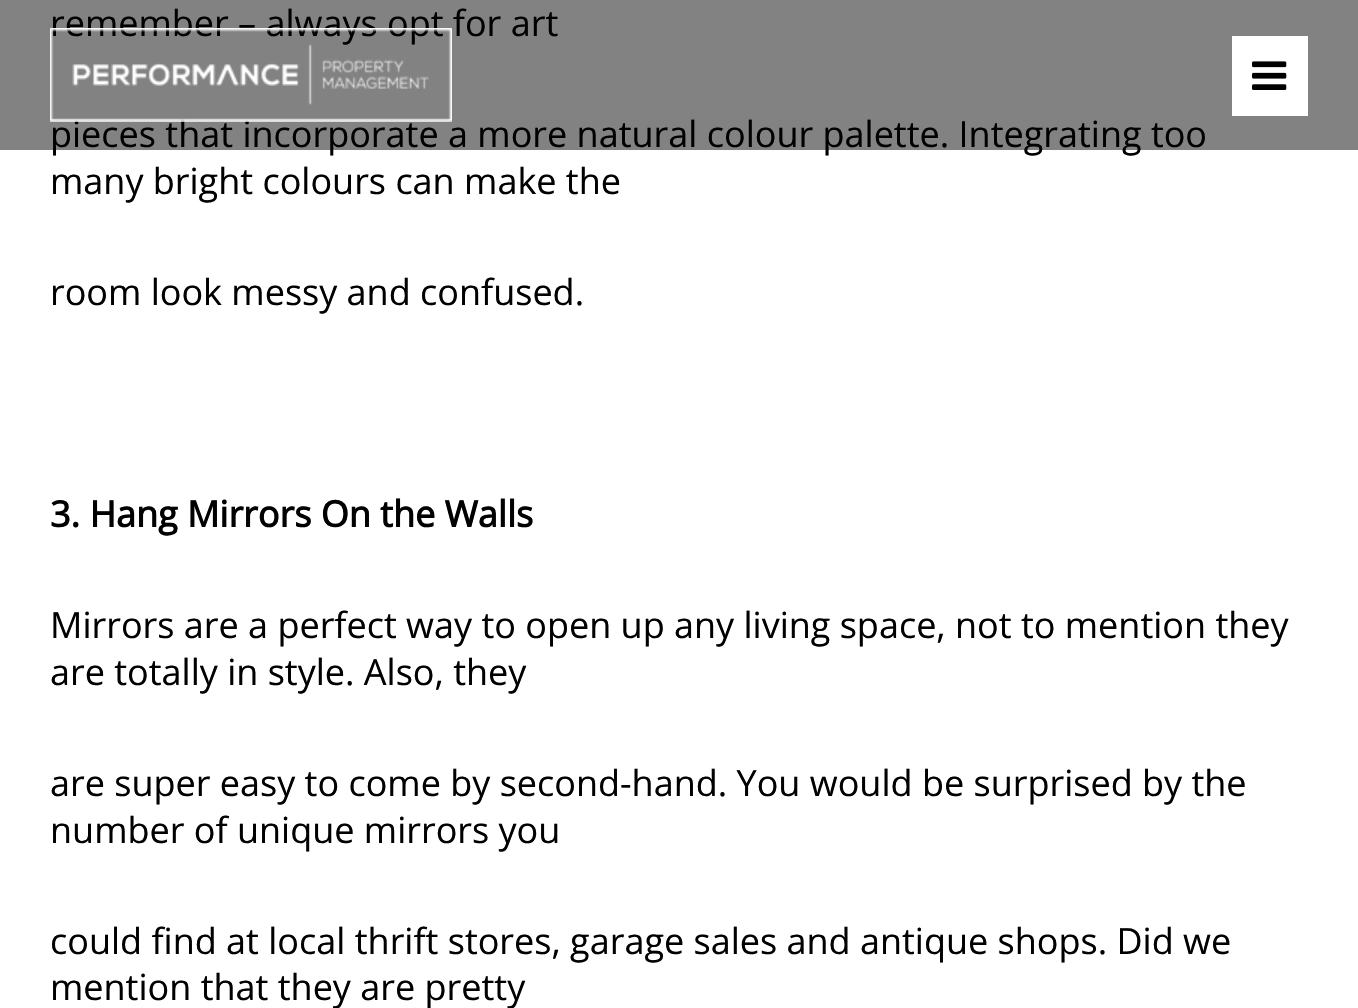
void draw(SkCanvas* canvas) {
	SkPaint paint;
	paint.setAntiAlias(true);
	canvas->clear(0xffffffff);
	SkFont f1(fontMgr->matchFamilyStyle("Open Sans", SkFontStyle::Normal()), 36);
	f1.setSubpixel(true);
	paint.setColor(0xff000000);
	canvas->drawString("remember – always opt for art", 50, 36, f1, paint);
	canvas->drawString("pieces that incorporate a more natural colour palette. Integrating too", 50, 147, f1, paint);
	paint.setColor(0x7d000000);
	canvas->drawRect(SkRect::MakeXYWH(0, 0, 1358, 150), paint);
	canvas->drawImageRect(SkImages::DeferredFromEncodedData(SkData::MakeFromFileName("img1.png")), SkRect::MakeXYWH(50, 28, 402, 94), SkSamplingOptions());
	paint.setColor(0xffffffff);
	canvas->drawRect(SkRect::MakeXYWH(1232, 36, 76, 80), paint);
	canvas->drawImageRect(SkImages::DeferredFromEncodedData(SkData::MakeFromFileName("img2.png")), SkRect::MakeXYWH(1252, 61, 35, 29), SkSamplingOptions());
	paint.setColor(0xff000000);
	canvas->drawString("many bright colours can make the", 50, 194, f1, paint);
	canvas->drawString("room look messy and confused.", 50, 305, f1, paint);
	SkFont f2(fontMgr->matchFamilyStyle("Open Sans", SkFontStyle::Bold()), 36);
	f2.setSubpixel(true);
	canvas->drawString("3. Hang Mirrors On the Walls", 50, 527, f2, paint);
	canvas->drawString("Mirrors are a perfect way to open up any living space, not to mention they", 50, 638, f1, paint);
	canvas->drawString("are totally in style. Also, they", 50, 685, f1, paint);
	canvas->drawString("are super easy to come by second-hand. You would be surprised by the", 50, 796, f1, paint);
	canvas->drawString("number of unique mirrors you", 50, 843, f1, paint);
	canvas->drawString("could find at local thrift stores, garage sales and antique shops. Did we", 50, 954, f1, paint);
	canvas->drawString("mention that they are pretty", 50, 1000, f1, paint);
}
